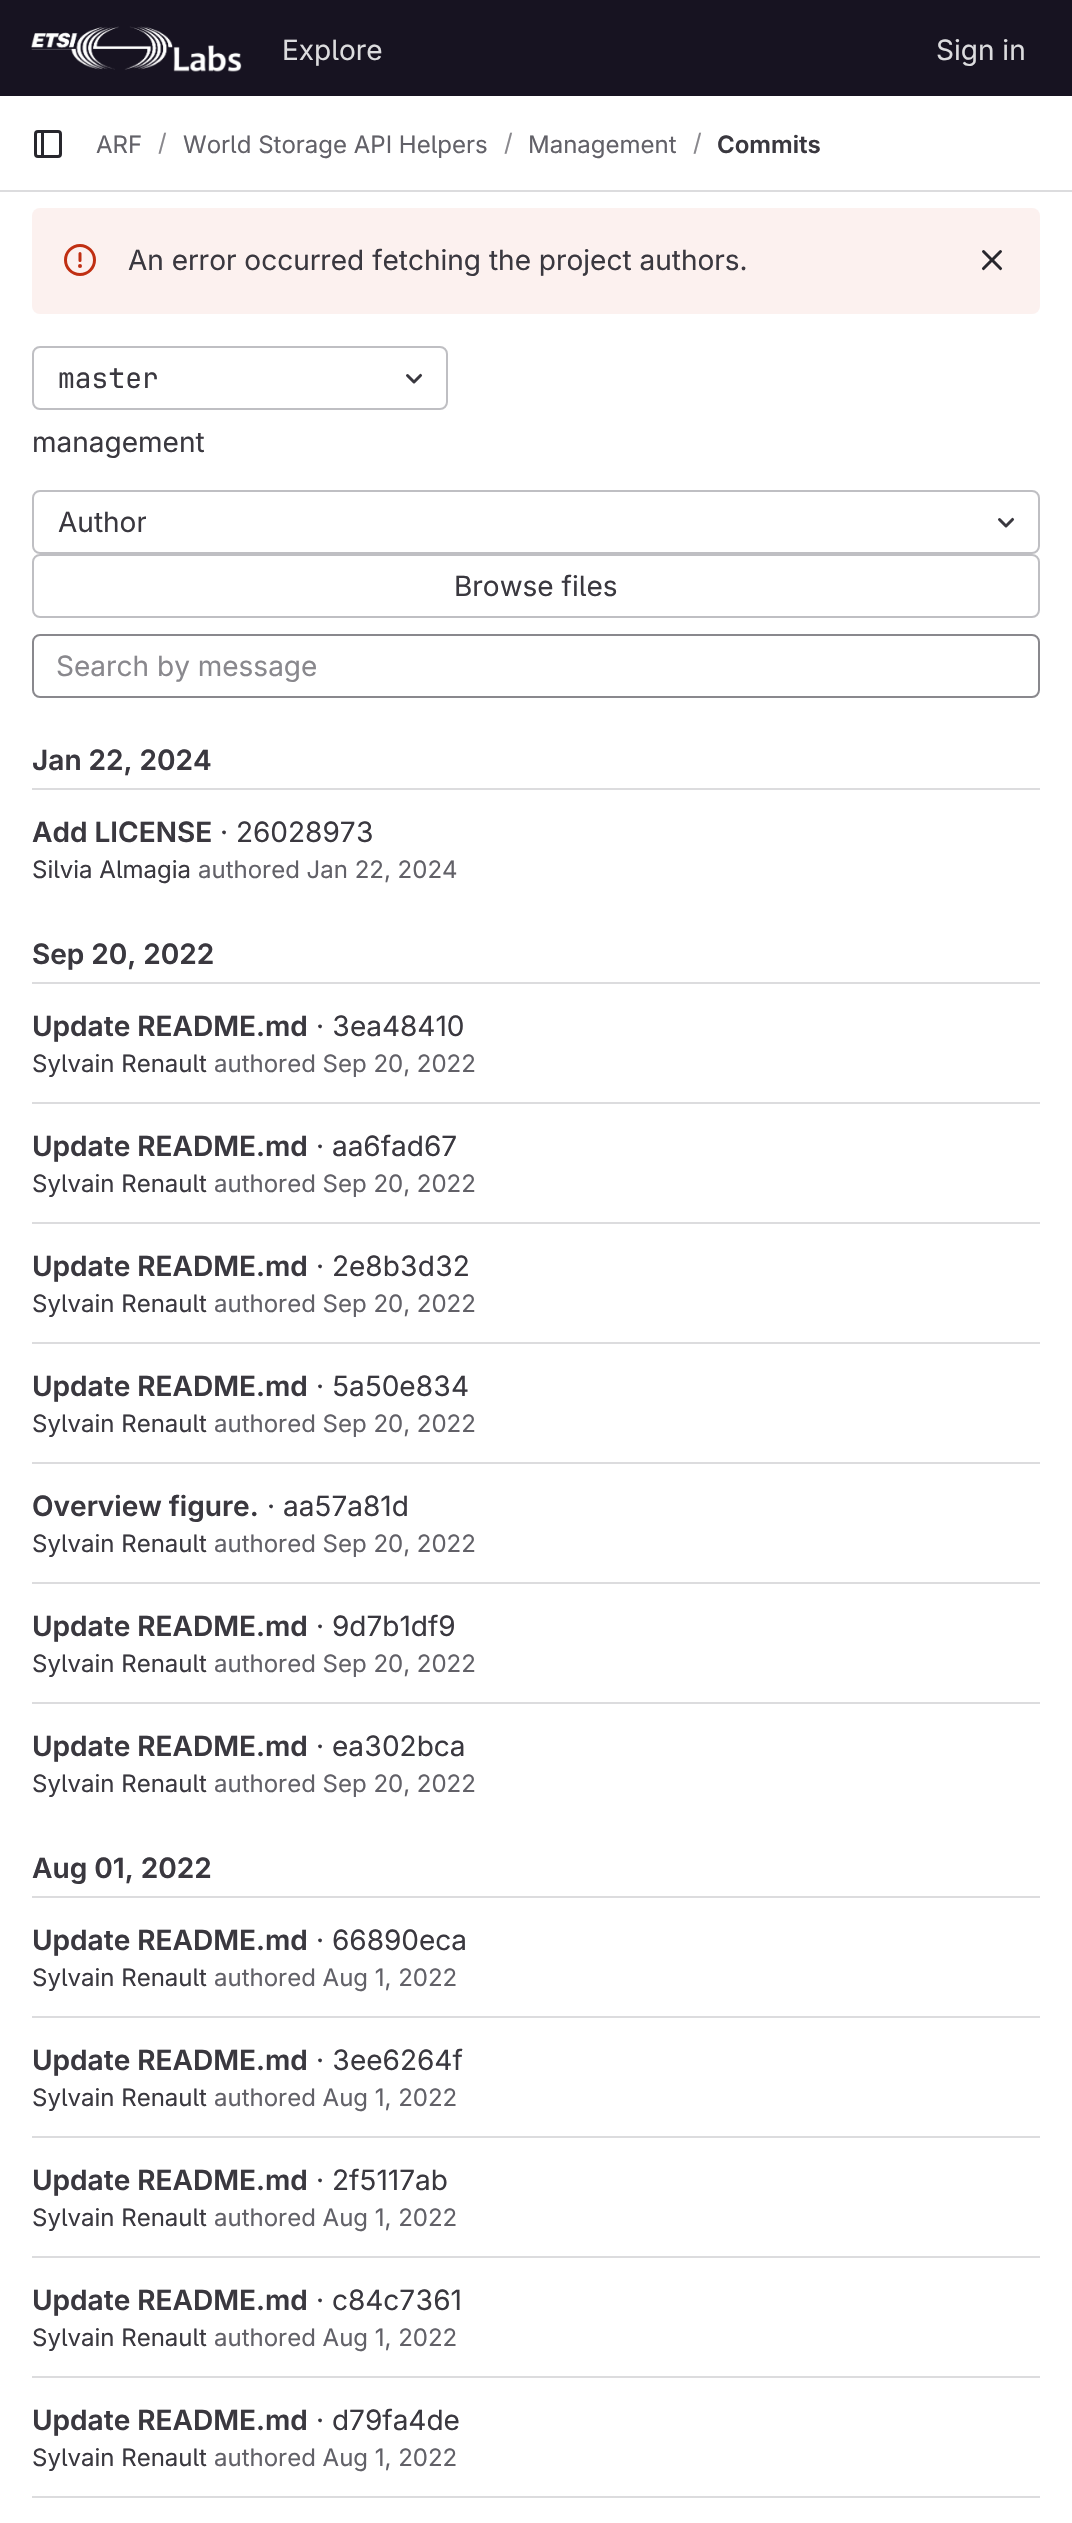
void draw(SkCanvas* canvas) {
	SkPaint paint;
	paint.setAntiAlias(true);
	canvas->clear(0xffffffff);
	paint.setColor(0xff171321);
	canvas->drawRect(SkRect::MakeXYWH(0, 0, 1072, 96), paint);
	canvas->drawImageRect(SkImages::DeferredFromEncodedData(SkData::MakeFromFileName("img1.png")), SkRect::MakeXYWH(31, 26, 211, 46), SkSamplingOptions());
	SkFont f1(fontMgr->matchFamilyStyle("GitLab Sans", SkFontStyle::Normal()), 28);
	f1.setSubpixel(true);
	paint.setColor(0xffdcdcde);
	canvas->drawString("Explore", 282, 60, f1, paint);
	canvas->drawString("Sign in", 936, 60, f1, paint);
	canvas->drawRect(SkRect::MakeXYWH(0, 190, 1072, 2), paint);
	canvas->drawImageRect(SkImages::DeferredFromEncodedData(SkData::MakeFromFileName("img2.png")), SkRect::MakeXYWH(34, 130, 28, 28), SkSamplingOptions());
	SkFont f2(fontMgr->matchFamilyStyle("GitLab Sans", SkFontStyle::Normal()), 24);
	f2.setSubpixel(true);
	paint.setColor(0xff626168);
	canvas->drawString("ARF", 96, 153, f2, paint);
	paint.setColor(0xff89888d);
	canvas->drawString("/", 158, 151, f2, paint);
	paint.setColor(0xff626168);
	canvas->drawString("World Storage API Helpers", 183, 153, f2, paint);
	paint.setColor(0xff89888d);
	canvas->drawString("/", 504, 151, f2, paint);
	paint.setColor(0xff626168);
	canvas->drawString("Management", 528, 153, f2, paint);
	paint.setColor(0xff89888d);
	canvas->drawString("/", 693, 151, f2, paint);
	SkFont f3(fontMgr->matchFamilyStyle("GitLab Sans", SkFontStyle(600, SkFontStyle::kNormal_Width, SkFontStyle::kUpright_Slant)), 24);
	f3.setSubpixel(true);
	paint.setColor(0xff3a383f);
	canvas->drawString("Commits", 717, 153, f3, paint);
	paint.setColor(0xfffcf1ef);
	canvas->drawRoundRect(SkRect::MakeXYWH(32, 208, 1008, 106), 8, 8, paint);
	canvas->drawImageRect(SkImages::DeferredFromEncodedData(SkData::MakeFromFileName("img3.png")), SkRect::MakeXYWH(64, 244, 32, 32), SkSamplingOptions());
	paint.setColor(0xff3a383f);
	canvas->drawString("An error occurred fetching the project authors.", 128, 270, f1, paint);
	canvas->drawImageRect(SkImages::DeferredFromEncodedData(SkData::MakeFromFileName("img4.png")), SkRect::MakeXYWH(981, 250, 22, 21), SkSamplingOptions());
	paint.setStroke(true);
	paint.setStrokeWidth(2);
	paint.setColor(0xffbfbfc3);
	canvas->drawRoundRect(SkRect::MakeXYWH(33, 347, 414, 62), 7, 7, paint);
	SkFont f4(fontMgr->matchFamilyStyle("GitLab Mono", SkFontStyle::Normal()), 28);
	f4.setSubpixel(true);
	paint.setStroke(false);
	paint.setColor(0xff3a383f);
	canvas->drawString("master", 58, 388, f4, paint);
	canvas->drawImageRect(SkImages::DeferredFromEncodedData(SkData::MakeFromFileName("img5.png")), SkRect::MakeXYWH(406, 373, 17, 11), SkSamplingOptions());
	canvas->drawString("management", 32, 452, f1, paint);
	paint.setStroke(true);
	paint.setColor(0xffbfbfc3);
	canvas->drawRoundRect(SkRect::MakeXYWH(33, 491, 1006, 62), 7, 7, paint);
	canvas->save();
	canvas->clipRect(SkRect::MakeXYWH(58, 506, 88, 32));
	paint.setStroke(false);
	paint.setColor(0xff3a383f);
	canvas->drawString("Author", 58, 532, f1, paint);
	canvas->restore();
	canvas->drawImageRect(SkImages::DeferredFromEncodedData(SkData::MakeFromFileName("img5.png")), SkRect::MakeXYWH(998, 517, 17, 11), SkSamplingOptions());
	paint.setStroke(true);
	paint.setColor(0xffbfbfc3);
	canvas->drawRoundRect(SkRect::MakeXYWH(33, 555, 1006, 62), 7, 7, paint);
	paint.setStroke(false);
	paint.setColor(0xff3a383f);
	canvas->drawString("Browse files", 454, 596, f1, paint);
	paint.setStroke(true);
	paint.setColor(0xff89888d);
	canvas->drawRoundRect(SkRect::MakeXYWH(33, 635, 1006, 62), 7, 7, paint);
	paint.setStroke(false);
	canvas->drawString("Search by message", 56, 676, f1, paint);
	SkFont f5(fontMgr->matchFamilyStyle("GitLab Sans", SkFontStyle(600, SkFontStyle::kNormal_Width, SkFontStyle::kUpright_Slant)), 28);
	f5.setSubpixel(true);
	paint.setColor(0xff3a383f);
	canvas->drawString("Jan 22, 2024", 32, 770, f5, paint);
	paint.setColor(0xffdcdcde);
	canvas->drawRect(SkRect::MakeXYWH(32, 788, 1008, 2), paint);
	paint.setColor(0xff3a383f);
	canvas->drawString("Add LICENSE", 32, 842, f5, paint);
	canvas->drawString("· 26028973", 220, 842, f1, paint);
	canvas->drawString("Silvia Almagia", 32, 878, f2, paint);
	paint.setColor(0xff626168);
	canvas->drawString("authored Jan 22, 2024", 198, 878, f2, paint);
	paint.setColor(0xff3a383f);
	canvas->drawString("Sep 20, 2022", 32, 964, f5, paint);
	paint.setColor(0xffdcdcde);
	canvas->drawRect(SkRect::MakeXYWH(32, 982, 1008, 2), paint);
	canvas->drawRect(SkRect::MakeXYWH(32, 1102, 1008, 2), paint);
	paint.setColor(0xff3a383f);
	canvas->drawString("Update README.md", 32, 1036, f5, paint);
	canvas->drawString("· 3ea48410", 316, 1036, f1, paint);
	canvas->drawString("Sylvain Renault", 32, 1072, f2, paint);
	paint.setColor(0xff626168);
	canvas->drawString("authored Sep 20, 2022", 214, 1072, f2, paint);
	paint.setColor(0xffdcdcde);
	canvas->drawRect(SkRect::MakeXYWH(32, 1222, 1008, 2), paint);
	paint.setColor(0xff3a383f);
	canvas->drawString("Update README.md", 32, 1156, f5, paint);
	canvas->drawString("· aa6fad67", 316, 1156, f1, paint);
	canvas->drawString("Sylvain Renault", 32, 1192, f2, paint);
	paint.setColor(0xff626168);
	canvas->drawString("authored Sep 20, 2022", 214, 1192, f2, paint);
	paint.setColor(0xffdcdcde);
	canvas->drawRect(SkRect::MakeXYWH(32, 1342, 1008, 2), paint);
	paint.setColor(0xff3a383f);
	canvas->drawString("Update README.md", 32, 1276, f5, paint);
	canvas->drawString("· 2e8b3d32", 316, 1276, f1, paint);
	canvas->drawString("Sylvain Renault", 32, 1312, f2, paint);
	paint.setColor(0xff626168);
	canvas->drawString("authored Sep 20, 2022", 214, 1312, f2, paint);
	paint.setColor(0xffdcdcde);
	canvas->drawRect(SkRect::MakeXYWH(32, 1462, 1008, 2), paint);
	paint.setColor(0xff3a383f);
	canvas->drawString("Update README.md", 32, 1396, f5, paint);
	canvas->drawString("· 5a50e834", 316, 1396, f1, paint);
	canvas->drawString("Sylvain Renault", 32, 1432, f2, paint);
	paint.setColor(0xff626168);
	canvas->drawString("authored Sep 20, 2022", 214, 1432, f2, paint);
	paint.setColor(0xffdcdcde);
	canvas->drawRect(SkRect::MakeXYWH(32, 1582, 1008, 2), paint);
	paint.setColor(0xff3a383f);
	canvas->drawString("Overview figure.", 32, 1516, f5, paint);
	canvas->drawString("· aa57a81d", 267, 1516, f1, paint);
	canvas->drawString("Sylvain Renault", 32, 1552, f2, paint);
	paint.setColor(0xff626168);
	canvas->drawString("authored Sep 20, 2022", 214, 1552, f2, paint);
	paint.setColor(0xffdcdcde);
	canvas->drawRect(SkRect::MakeXYWH(32, 1702, 1008, 2), paint);
	paint.setColor(0xff3a383f);
	canvas->drawString("Update README.md", 32, 1636, f5, paint);
	canvas->drawString("· 9d7b1df9", 316, 1636, f1, paint);
	canvas->drawString("Sylvain Renault", 32, 1672, f2, paint);
	paint.setColor(0xff626168);
	canvas->drawString("authored Sep 20, 2022", 214, 1672, f2, paint);
	paint.setColor(0xff3a383f);
	canvas->drawString("Update README.md", 32, 1756, f5, paint);
	canvas->drawString("· ea302bca", 316, 1756, f1, paint);
	canvas->drawString("Sylvain Renault", 32, 1792, f2, paint);
	paint.setColor(0xff626168);
	canvas->drawString("authored Sep 20, 2022", 214, 1792, f2, paint);
	paint.setColor(0xff3a383f);
	canvas->drawString("Aug 01, 2022", 32, 1878, f5, paint);
	paint.setColor(0xffdcdcde);
	canvas->drawRect(SkRect::MakeXYWH(32, 1896, 1008, 2), paint);
	canvas->drawRect(SkRect::MakeXYWH(32, 2016, 1008, 2), paint);
	paint.setColor(0xff3a383f);
	canvas->drawString("Update README.md", 32, 1950, f5, paint);
	canvas->drawString("· 66890eca", 316, 1950, f1, paint);
	canvas->drawString("Sylvain Renault", 32, 1986, f2, paint);
	paint.setColor(0xff626168);
	canvas->drawString("authored Aug 1, 2022", 214, 1986, f2, paint);
	paint.setColor(0xffdcdcde);
	canvas->drawRect(SkRect::MakeXYWH(32, 2136, 1008, 2), paint);
	paint.setColor(0xff3a383f);
	canvas->drawString("Update README.md", 32, 2070, f5, paint);
	canvas->drawString("· 3ee6264f", 316, 2070, f1, paint);
	canvas->drawString("Sylvain Renault", 32, 2106, f2, paint);
	paint.setColor(0xff626168);
	canvas->drawString("authored Aug 1, 2022", 214, 2106, f2, paint);
	paint.setColor(0xffdcdcde);
	canvas->drawRect(SkRect::MakeXYWH(32, 2256, 1008, 2), paint);
	paint.setColor(0xff3a383f);
	canvas->drawString("Update README.md", 32, 2190, f5, paint);
	canvas->drawString("· 2f5117ab", 316, 2190, f1, paint);
	canvas->drawString("Sylvain Renault", 32, 2226, f2, paint);
	paint.setColor(0xff626168);
	canvas->drawString("authored Aug 1, 2022", 214, 2226, f2, paint);
	paint.setColor(0xffdcdcde);
	canvas->drawRect(SkRect::MakeXYWH(32, 2376, 1008, 2), paint);
	paint.setColor(0xff3a383f);
	canvas->drawString("Update README.md", 32, 2310, f5, paint);
	canvas->drawString("· c84c7361", 316, 2310, f1, paint);
	canvas->drawString("Sylvain Renault", 32, 2346, f2, paint);
	paint.setColor(0xff626168);
	canvas->drawString("authored Aug 1, 2022", 214, 2346, f2, paint);
	paint.setColor(0xffdcdcde);
	canvas->drawRect(SkRect::MakeXYWH(32, 2496, 1008, 2), paint);
	paint.setColor(0xff3a383f);
	canvas->drawString("Update README.md", 32, 2430, f5, paint);
	canvas->drawString("· d79fa4de", 316, 2430, f1, paint);
	canvas->drawString("Sylvain Renault", 32, 2466, f2, paint);
	paint.setColor(0xff626168);
	canvas->drawString("authored Aug 1, 2022", 214, 2466, f2, paint);
}
